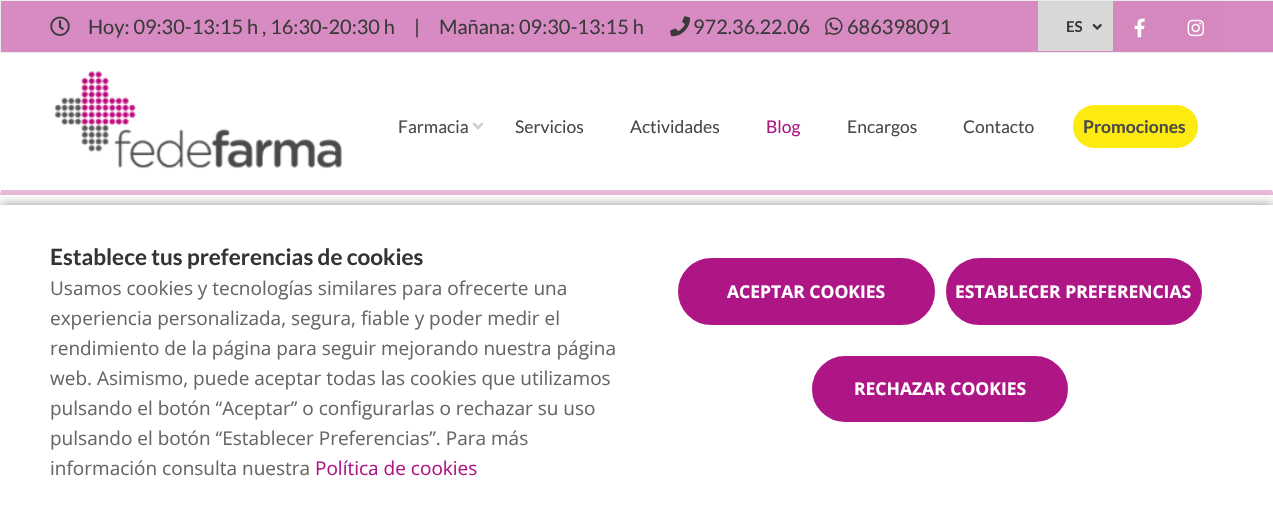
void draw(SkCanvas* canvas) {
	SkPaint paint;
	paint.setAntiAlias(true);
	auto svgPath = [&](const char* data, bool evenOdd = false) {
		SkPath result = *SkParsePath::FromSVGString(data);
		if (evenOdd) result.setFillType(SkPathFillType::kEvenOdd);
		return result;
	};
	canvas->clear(0xffffffff);
	paint.setColor(0xffd78bc2);
	canvas->drawRect(SkRect::MakeXYWH(0.5, 0.5, 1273, 52), paint);
	paint.setStroke(true);
	paint.setStrokeWidth(1);
	paint.setColor(0xffeaeaea);
	canvas->drawRect(SkRect::MakeXYWH(0.5, 0.5, 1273, 52), paint);
	canvas->drawImageRect(SkImages::DeferredFromEncodedData(SkData::MakeFromFileName("img1.png")), SkRect::MakeXYWH(50, 16, 20, 20), SkSamplingOptions());
	SkFont f1(fontMgr->matchFamilyStyle("Lato", SkFontStyle::Normal()), 20);
	f1.setSubpixel(true);
	paint.setStroke(false);
	paint.setColor(0xff3a3a3a);
	canvas->drawString("Hoy: 09:30-13:15 h , 16:30-20:30 h", 88, 34, f1, paint);
	canvas->drawString("|", 414, 34, f1, paint);
	canvas->drawString("Mañana: 09:30-13:15 h", 439, 34, f1, paint);
	canvas->drawImageRect(SkImages::DeferredFromEncodedData(SkData::MakeFromFileName("img2.png")), SkRect::MakeXYWH(670, 16, 20, 21), SkSamplingOptions());
	canvas->drawString("972.36.22.06", 693, 34, f1, paint);
	canvas->drawImageRect(SkImages::DeferredFromEncodedData(SkData::MakeFromFileName("img3.png")), SkRect::MakeXYWH(825, 17, 18, 18), SkSamplingOptions());
	canvas->drawString("686398091", 847, 34, f1, paint);
	paint.setColor(0xffd8d8d8);
	canvas->drawRect(SkRect::MakeXYWH(1038, 1, 75, 50), paint);
	SkFont f2(fontMgr->matchFamilyStyle("Lato", SkFontStyle::Bold()), 15);
	f2.setSubpixel(true);
	paint.setColor(0xff3a3a3a);
	canvas->drawString("ES", 1066, 32, f2, paint);
	canvas->drawImageRect(SkImages::DeferredFromEncodedData(SkData::MakeFromFileName("img4.png")), SkRect::MakeXYWH(1092, 23, 10, 7), SkSamplingOptions());
	paint.setColor(0xffd488be);
	canvas->drawRect(SkRect::MakeXYWH(1113, 1, 112, 50), paint);
	canvas->drawImageRect(SkImages::DeferredFromEncodedData(SkData::MakeFromFileName("img5.png")), SkRect::MakeXYWH(1134, 18, 11, 20), SkSamplingOptions());
	canvas->drawImageRect(SkImages::DeferredFromEncodedData(SkData::MakeFromFileName("img6.png")), SkRect::MakeXYWH(1187, 19, 17, 18), SkSamplingOptions());
	paint.setColor(0xffe7b9da);
	canvas->drawPath(svgPath("M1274 195H0L1 190H1272Z"), paint);
	canvas->drawImageRect(SkImages::DeferredFromEncodedData(SkData::MakeFromFileName("img7.png")), SkRect::MakeXYWH(54, 71, 289, 98), SkSamplingOptions());
	SkFont f3(fontMgr->matchFamilyStyle("Lato", SkFontStyle::Normal()), 17.5);
	f3.setSubpixel(true);
	paint.setColor(0xff4a4a49);
	canvas->drawString("Farmacia", 398, 133, f3, paint);
	canvas->drawImageRect(SkImages::DeferredFromEncodedData(SkData::MakeFromFileName("img8.png")), SkRect::MakeXYWH(472, 122, 12, 8), SkSamplingOptions());
	canvas->drawString("Servicios", 515, 133, f3, paint);
	canvas->drawString("Actividades", 630, 133, f3, paint);
	paint.setColor(0xffaf1685);
	canvas->drawString("Blog", 766, 133, f3, paint);
	paint.setColor(0xff4a4a49);
	canvas->drawString("Encargos", 847, 133, f3, paint);
	canvas->drawString("Contacto", 963, 133, f3, paint);
	paint.setColor(0xfffcea10);
	canvas->drawRoundRect(SkRect::MakeXYWH(1073, 105, 125, 43), 21.5, 21.5, paint);
	SkFont f4(fontMgr->matchFamilyStyle("Lato", SkFontStyle::Bold()), 17.5);
	f4.setSubpixel(true);
	paint.setColor(0xff4a4a49);
	canvas->drawString("Promociones", 1083, 133, f4, paint);
	paint.setColor(0x80000000);
	paint.setMaskFilter(SkMaskFilter::MakeBlur(kNormal_SkBlurStyle, 6));
	canvas->drawRect(SkRect::MakeXYWH(0, 206, 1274, 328), paint);
	paint.setMaskFilter(nullptr);
	paint.setColor(0xffffffff);
	canvas->drawRect(SkRect::MakeXYWH(0, 205, 1273, 327), paint);
	SkFont f5(fontMgr->matchFamilyStyle("Lato", SkFontStyle::Bold()), 22.5);
	f5.setSubpixel(true);
	paint.setColor(0xff343434);
	canvas->drawString("Establece tus preferencias de cookies", 50, 265, f5, paint);
	SkFont f6(fontMgr->matchFamilyStyle("Open Sans", SkFontStyle::Normal()), 19);
	f6.setSubpixel(true);
	paint.setColor(0xff666666);
	canvas->drawString("Usamos cookies y tecnologías similares para ofrecerte una", 50, 295, f6, paint);
	canvas->drawString("experiencia personalizada, segura, fiable y poder medir el", 50, 325, f6, paint);
	canvas->drawString("rendimiento de la página para seguir mejorando nuestra página", 50, 355, f6, paint);
	canvas->drawString("web. Asimismo, puede aceptar todas las cookies que utilizamos", 50, 385, f6, paint);
	canvas->drawString("pulsando el botón “Aceptar” o configurarlas o rechazar su uso", 50, 415, f6, paint);
	canvas->drawString("pulsando el botón “Establecer Preferencias”. Para más", 50, 445, f6, paint);
	canvas->drawString("información consulta nuestra", 50, 475, f6, paint);
	paint.setColor(0xffaf1685);
	canvas->drawString("Política de cookies", 315, 475, f6, paint);
	canvas->drawRoundRect(SkRect::MakeXYWH(676.5, 256.5, 260, 70), 35, 35, paint);
	paint.setStroke(true);
	paint.setStrokeWidth(3);
	paint.setColor(0xffffffff);
	canvas->drawRoundRect(SkRect::MakeXYWH(676.5, 256.5, 260, 70), 35, 35, paint);
	SkFont f7(fontMgr->matchFamilyStyle("Open Sans", SkFontStyle::Bold()), 17.5);
	f7.setSubpixel(true);
	paint.setStroke(false);
	canvas->drawString("ACEPTAR COOKIES", 727, 298, f7, paint);
	paint.setColor(0xffaf1685);
	canvas->drawRoundRect(SkRect::MakeXYWH(944.5, 256.5, 259, 70), 35, 35, paint);
	paint.setStroke(true);
	paint.setColor(0xffffffff);
	canvas->drawRoundRect(SkRect::MakeXYWH(944.5, 256.5, 259, 70), 35, 35, paint);
	paint.setStroke(false);
	canvas->drawString("ESTABLECER PREFERENCIAS", 955, 298, f7, paint);
	paint.setColor(0xffaf1685);
	canvas->drawRoundRect(SkRect::MakeXYWH(810.5, 354.5, 259, 69), 34.5, 34.5, paint);
	paint.setStroke(true);
	paint.setColor(0xffffffff);
	canvas->drawRoundRect(SkRect::MakeXYWH(810.5, 354.5, 259, 69), 34.5, 34.5, paint);
	paint.setStroke(false);
	canvas->drawString("RECHAZAR COOKIES", 854, 395, f7, paint);
}
